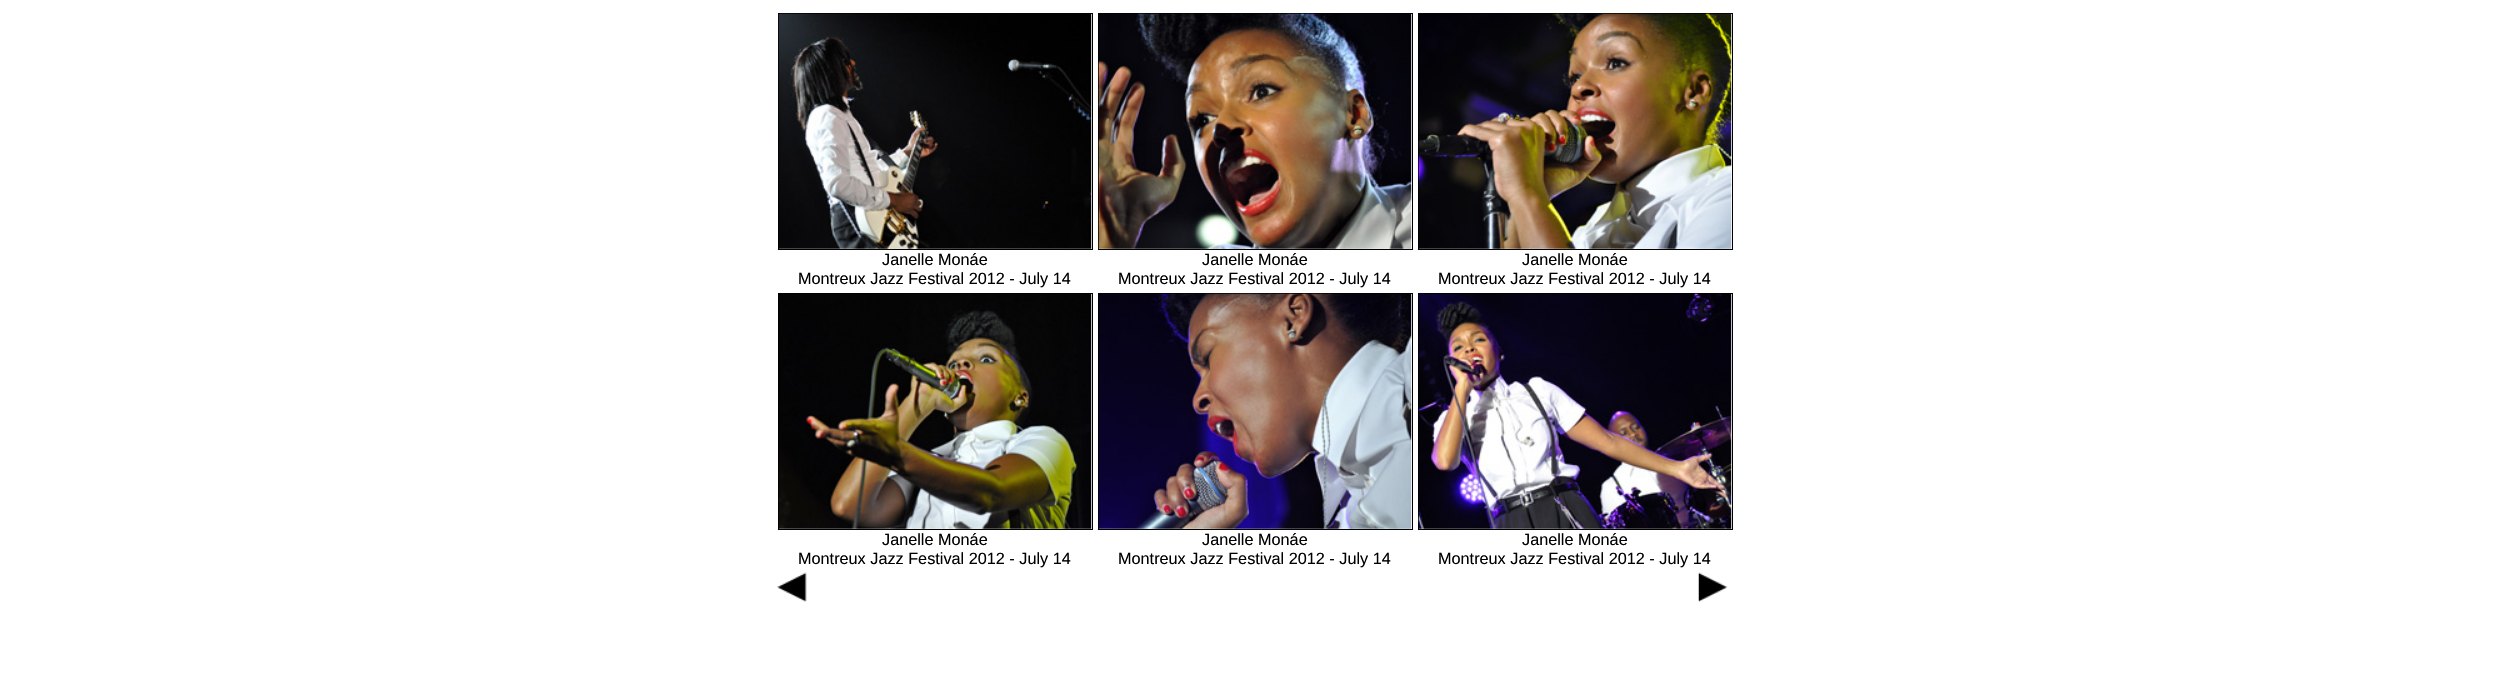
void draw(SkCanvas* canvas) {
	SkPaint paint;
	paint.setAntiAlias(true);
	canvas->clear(0xffffffff);
	paint.setStroke(true);
	paint.setStrokeWidth(1);
	paint.setColor(0xff000000);
	canvas->drawRect(SkRect::MakeXYWH(778.5, 13.5, 314, 236), paint);
	canvas->drawImageRect(SkImages::DeferredFromEncodedData(SkData::MakeFromFileName("img1.png")), SkRect::MakeXYWH(778, 13, 314, 236), SkSamplingOptions());
	SkFont f1(fontMgr->matchFamilyStyle("Liberation Sans", SkFontStyle::Normal()), 16.25);
	f1.setSubpixel(true);
	paint.setStroke(false);
	canvas->drawString("Janelle Monáe", 882, 265, f1, paint);
	canvas->drawString("Montreux Jazz Festival 2012 - July 14", 798, 284, f1, paint);
	paint.setStroke(true);
	canvas->drawRect(SkRect::MakeXYWH(1098.5, 13.5, 314, 236), paint);
	canvas->drawImageRect(SkImages::DeferredFromEncodedData(SkData::MakeFromFileName("img2.png")), SkRect::MakeXYWH(1098, 13, 314, 236), SkSamplingOptions());
	paint.setStroke(false);
	canvas->drawString("Janelle Monáe", 1202, 265, f1, paint);
	canvas->drawString("Montreux Jazz Festival 2012 - July 14", 1118, 284, f1, paint);
	paint.setStroke(true);
	canvas->drawRect(SkRect::MakeXYWH(1418.5, 13.5, 314, 236), paint);
	canvas->drawImageRect(SkImages::DeferredFromEncodedData(SkData::MakeFromFileName("img3.png")), SkRect::MakeXYWH(1418, 13, 314, 236), SkSamplingOptions());
	paint.setStroke(false);
	canvas->drawString("Janelle Monáe", 1522, 265, f1, paint);
	canvas->drawString("Montreux Jazz Festival 2012 - July 14", 1438, 284, f1, paint);
	paint.setStroke(true);
	canvas->drawRect(SkRect::MakeXYWH(778.5, 293.5, 314, 236), paint);
	canvas->drawImageRect(SkImages::DeferredFromEncodedData(SkData::MakeFromFileName("img4.png")), SkRect::MakeXYWH(778, 294, 314, 235), SkSamplingOptions());
	paint.setStroke(false);
	canvas->drawString("Janelle Monáe", 882, 545, f1, paint);
	canvas->drawString("Montreux Jazz Festival 2012 - July 14", 798, 564, f1, paint);
	paint.setStroke(true);
	canvas->drawRect(SkRect::MakeXYWH(1098.5, 293.5, 314, 236), paint);
	canvas->drawImageRect(SkImages::DeferredFromEncodedData(SkData::MakeFromFileName("img5.png")), SkRect::MakeXYWH(1098, 293, 314, 236), SkSamplingOptions());
	paint.setStroke(false);
	canvas->drawString("Janelle Monáe", 1202, 545, f1, paint);
	canvas->drawString("Montreux Jazz Festival 2012 - July 14", 1118, 564, f1, paint);
	paint.setStroke(true);
	canvas->drawRect(SkRect::MakeXYWH(1418.5, 293.5, 314, 236), paint);
	canvas->drawImageRect(SkImages::DeferredFromEncodedData(SkData::MakeFromFileName("img6.png")), SkRect::MakeXYWH(1418, 293, 314, 236), SkSamplingOptions());
	paint.setStroke(false);
	canvas->drawString("Janelle Monáe", 1522, 545, f1, paint);
	canvas->drawString("Montreux Jazz Festival 2012 - July 14", 1438, 564, f1, paint);
	canvas->drawImageRect(SkImages::DeferredFromEncodedData(SkData::MakeFromFileName("img7.png")), SkRect::MakeXYWH(777, 572, 30, 30), SkSamplingOptions());
	canvas->drawImageRect(SkImages::DeferredFromEncodedData(SkData::MakeFromFileName("img8.png")), SkRect::MakeXYWH(1698, 572, 30, 30), SkSamplingOptions());
}
